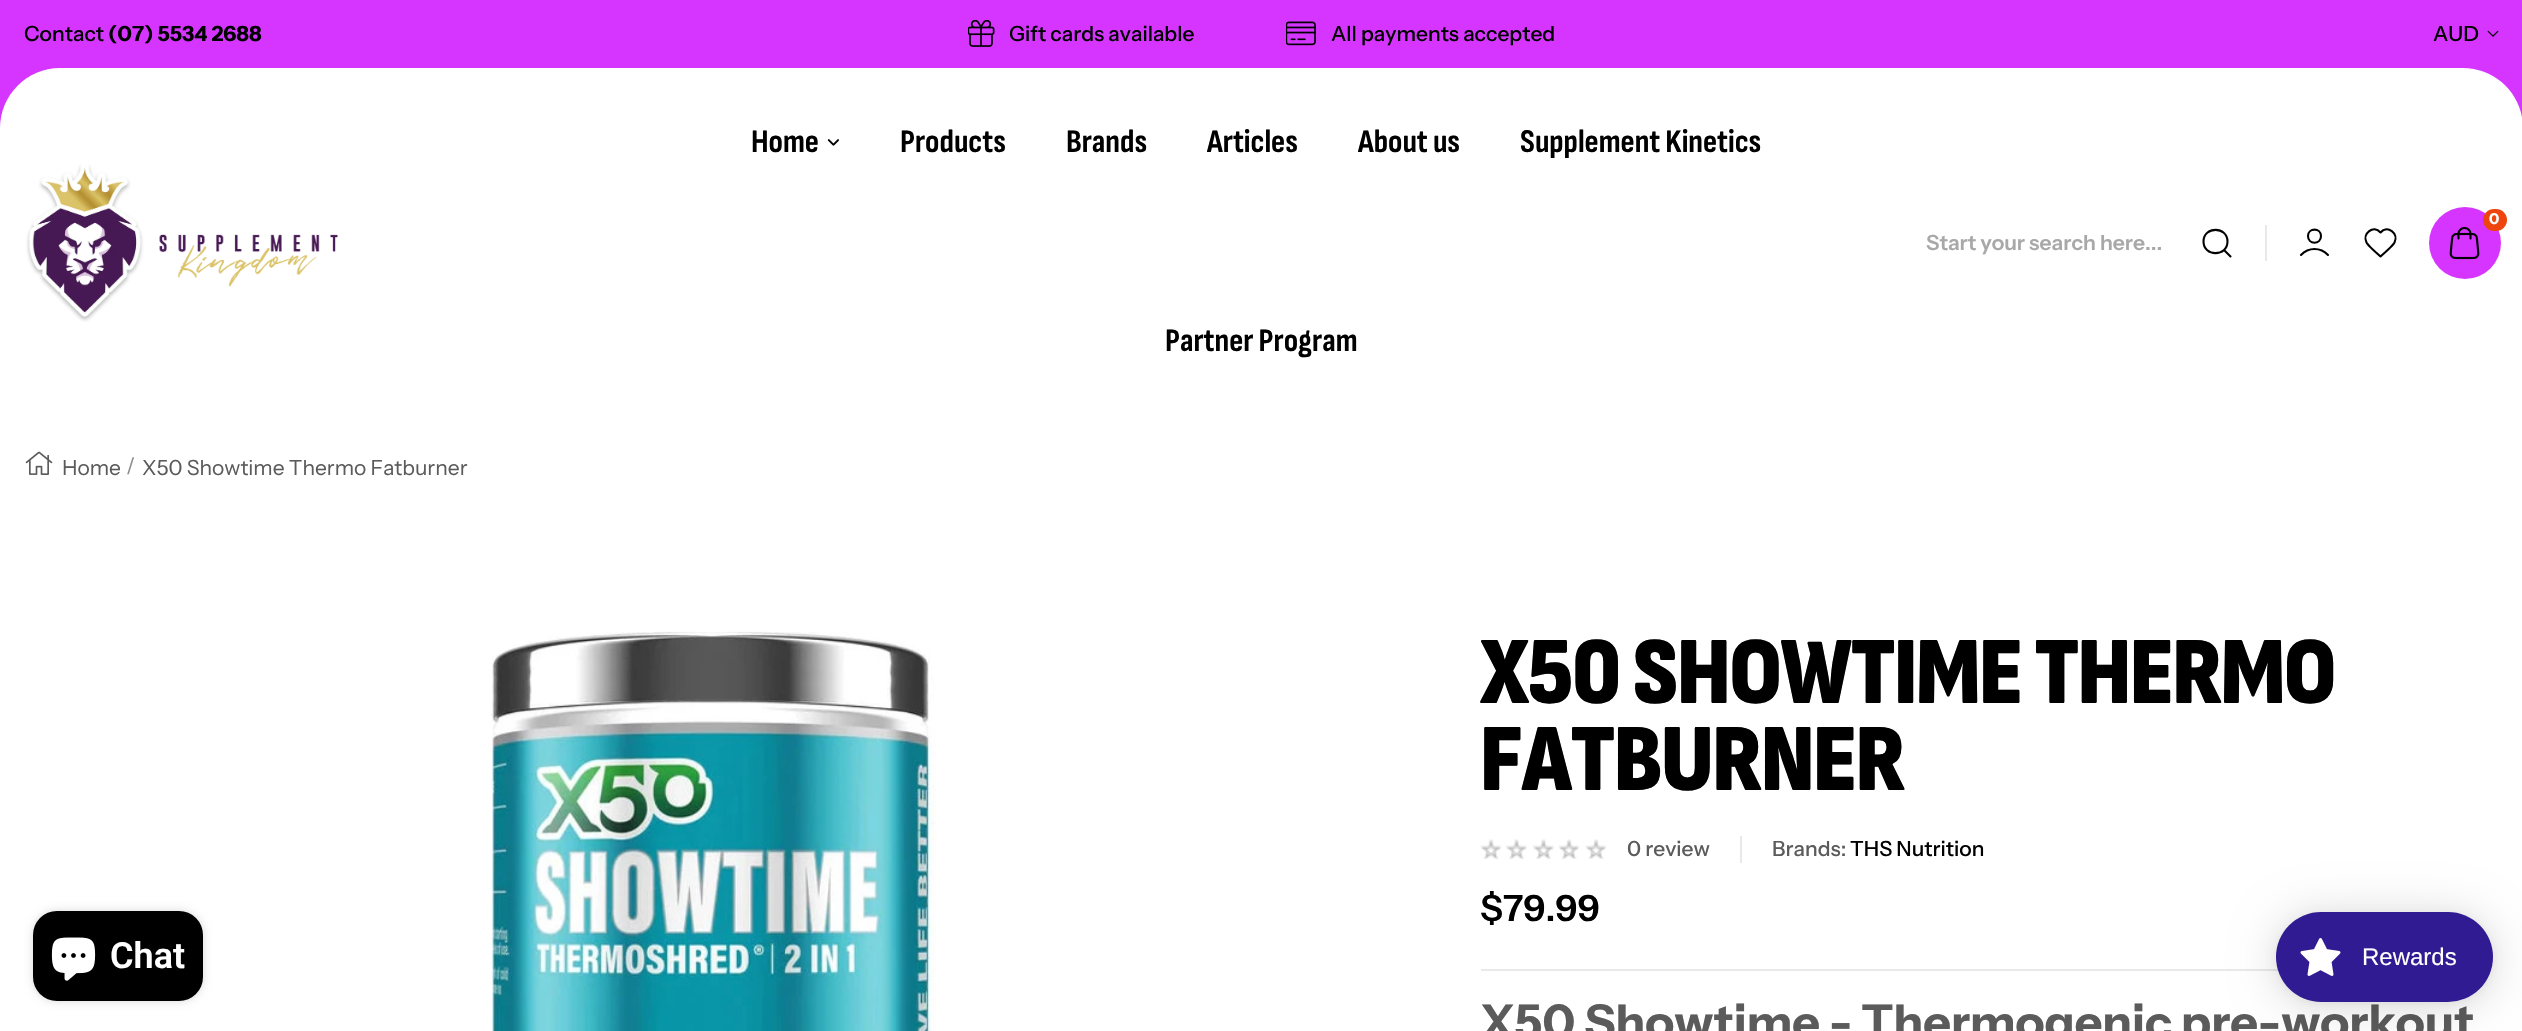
void draw(SkCanvas* canvas) {
	SkPaint paint;
	paint.setAntiAlias(true);
	auto spacedText = [&](const char* s, float x, float y, const SkFont& font, const SkPaint& ink, float letter, float word) {
		std::vector<SkGlyphID> glyphs(font.countText(s, strlen(s), SkTextEncoding::kUTF8));
		std::vector<float> xs(glyphs.size());
		font.textToGlyphs(s, strlen(s), SkTextEncoding::kUTF8, glyphs);
		font.getXPos(glyphs, xs, x);
		float extra = 0;
		for (size_t i = 0; i < glyphs.size(); i++) {
			xs[i] += extra;
			extra += letter + word * (glyphs[i] == font.unicharToGlyph(' '));
		}
		canvas->drawTextBlob(SkTextBlob::MakeFromPosHGlyphs(glyphs, xs, y, font), 0, 0, ink);
	};
	auto svgPath = [&](const char* data, bool evenOdd = false) {
		SkPath result = *SkParsePath::FromSVGString(data);
		if (evenOdd) result.setFillType(SkPathFillType::kEvenOdd);
		return result;
	};
	canvas->clear(0xffffffff);
	paint.setColor(0xffd635ff);
	canvas->drawRect(SkRect::MakeXYWH(0, 0, 2522, 128), paint);
	SkFont f1(fontMgr->matchFamilyStyle("Instrument Sans", SkFontStyle(500, SkFontStyle::kNormal_Width, SkFontStyle::kUpright_Slant)), 21);
	f1.setSubpixel(true);
	paint.setColor(0xff000000);
	canvas->drawString("Contact", 24, 41, f1, paint);
	SkFont f2(fontMgr->matchFamilyStyle("Instrument Sans", SkFontStyle::Bold()), 21);
	f2.setSubpixel(true);
	canvas->drawString("(07) 5534 2688", 108, 41, f2, paint);
	canvas->drawImageRect(SkImages::DeferredFromEncodedData(SkData::MakeFromFileName("img1.png")), SkRect::MakeXYWH(968, 20, 27, 27), SkSamplingOptions());
	canvas->drawString("Gift cards available", 1009, 41, f1, paint);
	canvas->drawImageRect(SkImages::DeferredFromEncodedData(SkData::MakeFromFileName("img2.png")), SkRect::MakeXYWH(1286, 21, 30, 25), SkSamplingOptions());
	canvas->drawString("All payments accepted", 1331, 41, f1, paint);
	canvas->drawString("AUD", 2433, 41, f1, paint);
	canvas->drawImageRect(SkImages::DeferredFromEncodedData(SkData::MakeFromFileName("img3.png")), SkRect::MakeXYWH(2487, 30, 12, 7), SkSamplingOptions());
	paint.setColor(0xffffffff);
	canvas->drawPath(svgPath("M60 68H2463C2496 68 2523 95 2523 128V417H0V128C0 95 27 68 60 68Z"), paint);
	canvas->drawImageRect(SkImages::DeferredFromEncodedData(SkData::MakeFromFileName("img4.png")), SkRect::MakeXYWH(26, 164, 312, 158), SkSamplingOptions());
	SkFont f3(fontMgr->matchFamilyStyle("Sofia Sans Condensed", SkFontStyle::Bold()), 33);
	f3.setSubpixel(true);
	paint.setColor(0xff000000);
	canvas->drawString("Home", 751, 152, f3, paint);
	canvas->drawImageRect(SkImages::DeferredFromEncodedData(SkData::MakeFromFileName("img5.png")), SkRect::MakeXYWH(827, 139, 12, 7), SkSamplingOptions());
	canvas->drawString("Products", 900, 152, f3, paint);
	canvas->drawString("Brands", 1066, 152, f3, paint);
	canvas->drawString("Articles", 1207, 152, f3, paint);
	canvas->drawString("About us", 1358, 152, f3, paint);
	canvas->drawString("Supplement Kinetics", 1520, 152, f3, paint);
	canvas->drawString("Partner Program", 1165, 351, f3, paint);
	paint.setColor(0xffd635ff);
	canvas->drawCircle(2465, 243, 36, paint);
	canvas->drawImageRect(SkImages::DeferredFromEncodedData(SkData::MakeFromFileName("img6.png")), SkRect::MakeXYWH(2449, 226, 31, 34), SkSamplingOptions());
	paint.setColor(0xffee440e);
	canvas->drawRoundRect(SkRect::MakeXYWH(2483, 209, 24, 22), 11, 11, paint);
	SkFont f4(fontMgr->matchFamilyStyle("Instrument Sans", SkFontStyle::Bold()), 15);
	f4.setSubpixel(true);
	paint.setColor(0xffffffff);
	canvas->drawString("0", 2489, 224, f4, paint);
	paint.setColor(0xffe9e9e9);
	canvas->drawRect(SkRect::MakeXYWH(2265, 225, 2, 36), paint);
	SkFont f5(fontMgr->matchFamilyStyle("Instrument Sans", SkFontStyle(600, SkFontStyle::kNormal_Width, SkFontStyle::kUpright_Slant)), 21);
	f5.setSubpixel(true);
	paint.setColor(0xffa8a8a8);
	canvas->drawString("Start your search here...", 1926, 250, f5, paint);
	paint.setStroke(true);
	paint.setStrokeWidth(2.1);
	paint.setStrokeCap(SkPaint::kRound_Cap);
	paint.setStrokeJoin(SkPaint::kRound_Join);
	paint.setColor(0xff000000);
	canvas->drawPath(svgPath("M2230.5 256.5L2224 250M2227.5 241.5C2227.5 257 2203.5 257 2203.5 241.5C2203.5 226 2227.5 226 2227.5 241.5Z"), paint);
	canvas->drawPath(svgPath("M2301 255C2308.5 247 2320.5 247 2328 255M2321 236C2321 245 2308 245 2308 236C2308 227.5 2321 227.5 2321 236Z"), paint);
	canvas->drawPath(svgPath("M2380.5 232.5C2373.5 224.5 2362 233.5 2366.5 242.5C2368.5 246 2372.5 249 2375.5 252L2380.5 256.5L2385.5 252C2388.5 249 2392.5 246 2394.5 242.5C2399 233.5 2387.5 224.5 2380.5 232.5Z"), paint);
	canvas->drawImageRect(SkImages::DeferredFromEncodedData(SkData::MakeFromFileName("img7.png")), SkRect::MakeXYWH(25, 451, 28, 24), SkSamplingOptions());
	SkFont f6(fontMgr->matchFamilyStyle("Instrument Sans", SkFontStyle::Normal()), 21);
	f6.setSubpixel(true);
	paint.setStroke(false);
	paint.setColor(0xff5b5b5b);
	canvas->drawString("Home", 62, 475, f6, paint);
	paint.setColor(0xff8c8c8c);
	canvas->drawString("/", 126, 473, f6, paint);
	paint.setColor(0xff5b5b5b);
	canvas->drawString("X50 Showtime Thermo Fatburner", 142, 475, f6, paint);
	canvas->drawImageRect(SkImages::DeferredFromEncodedData(SkData::MakeFromFileName("img8.png")), SkRect::MakeXYWH(490, 631, 446, 400), SkSamplingOptions());
	SkFont f7(fontMgr->matchFamilyStyle("Sofia Sans Condensed", SkFontStyle(900, SkFontStyle::kNormal_Width, SkFontStyle::kUpright_Slant)), 96);
	f7.setSubpixel(true);
	paint.setColor(0xff000000);
	spacedText("X50 SHOWTIME THERMO", 1480, 703, f7, paint, -1.5, 0);
	spacedText("FATBURNER", 1480, 790, f7, paint, -1.5, 0);
	canvas->drawImageRect(SkImages::DeferredFromEncodedData(SkData::MakeFromFileName("img9.png")), SkRect::MakeXYWH(1480, 839, 21, 20), SkSamplingOptions());
	canvas->drawImageRect(SkImages::DeferredFromEncodedData(SkData::MakeFromFileName("img10.png")), SkRect::MakeXYWH(1506, 839, 21, 20), SkSamplingOptions());
	canvas->drawImageRect(SkImages::DeferredFromEncodedData(SkData::MakeFromFileName("img10.png")), SkRect::MakeXYWH(1533, 839, 21, 20), SkSamplingOptions());
	canvas->drawImageRect(SkImages::DeferredFromEncodedData(SkData::MakeFromFileName("img11.png")), SkRect::MakeXYWH(1559, 839, 20, 20), SkSamplingOptions());
	canvas->drawImageRect(SkImages::DeferredFromEncodedData(SkData::MakeFromFileName("img9.png")), SkRect::MakeXYWH(1585, 839, 21, 20), SkSamplingOptions());
	paint.setColor(0xff5b5b5b);
	canvas->drawString("0 review", 1627, 856, f1, paint);
	paint.setColor(0xffe9e9e9);
	canvas->drawRect(SkRect::MakeXYWH(1740, 836, 2, 27), paint);
	paint.setColor(0xff5b5b5b);
	canvas->drawString("Brands:", 1772, 856, f1, paint);
	paint.setColor(0xff000000);
	canvas->drawString("THS Nutrition", 1850, 856, f1, paint);
	paint.setColor(0xffe9e9e9);
	canvas->drawRect(SkRect::MakeXYWH(1481, 969, 798, 2), paint);
	SkFont f8(fontMgr->matchFamilyStyle("Instrument Sans", SkFontStyle(600, SkFontStyle::kNormal_Width, SkFontStyle::kUpright_Slant)), 36);
	f8.setSubpixel(true);
	paint.setColor(0xff000000);
	canvas->drawString("$79.99", 1480, 921, f8, paint);
	SkFont f9(fontMgr->matchFamilyStyle("Instrument Sans", SkFontStyle::Bold()), 48);
	f9.setSubpixel(true);
	paint.setColor(0xff5b5b5b);
	canvas->drawString("X50 Showtime - Thermogenic pre-workout", 1480, 1039, f9, paint);
	paint.setColor(0x26000000);
	paint.setMaskFilter(SkMaskFilter::MakeBlur(kNormal_SkBlurStyle, 4));
	canvas->drawRoundRect(SkRect::MakeXYWH(33, 911, 170, 90), 24, 24, paint);
	paint.setMaskFilter(nullptr);
	paint.setColor(0xff000000);
	canvas->drawRoundRect(SkRect::MakeXYWH(33, 911, 170, 90), 24, 24, paint);
	canvas->drawImageRect(SkImages::DeferredFromEncodedData(SkData::MakeFromFileName("img12.png")), SkRect::MakeXYWH(51, 937, 45, 44), SkSamplingOptions());
	SkFont f10(fontMgr->matchFamilyStyle("Roboto", SkFontStyle(600, SkFontStyle::kNormal_Width, SkFontStyle::kUpright_Slant)), 36);
	f10.setSubpixel(true);
	paint.setColor(0xffffffff);
	canvas->drawString("Chat", 110, 968, f10, paint);
	paint.setColor(0x26000000);
	paint.setMaskFilter(SkMaskFilter::MakeBlur(kNormal_SkBlurStyle, 22.5));
	canvas->drawRoundRect(SkRect::MakeXYWH(2276, 915, 217, 90), 45, 45, paint);
	paint.setMaskFilter(nullptr);
	paint.setColor(0x0d000000);
	paint.setMaskFilter(SkMaskFilter::MakeBlur(kNormal_SkBlurStyle, 4.5));
	canvas->drawRoundRect(SkRect::MakeXYWH(2276, 914, 217, 90), 45, 45, paint);
	paint.setMaskFilter(nullptr);
	paint.setColor(0xff311b92);
	canvas->drawRoundRect(SkRect::MakeXYWH(2276, 912, 217, 90), 45, 45, paint);
	canvas->drawImageRect(SkImages::DeferredFromEncodedData(SkData::MakeFromFileName("img13.png")), SkRect::MakeXYWH(2300, 938, 41, 38), SkSamplingOptions());
	SkFont f11(fontMgr->matchFamilyStyle("Liberation Sans", SkFontStyle::Normal()), 24);
	f11.setSubpixel(true);
	paint.setColor(0xffffffff);
	canvas->drawString("Rewards", 2362, 965, f11, paint);
}
